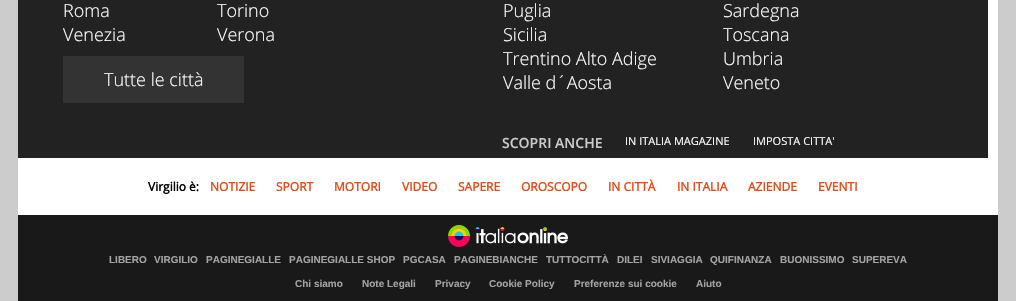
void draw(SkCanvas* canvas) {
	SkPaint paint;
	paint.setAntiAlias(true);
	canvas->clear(0xffcccccc);
	paint.setColor(0xffffffff);
	canvas->drawRect(SkRect::MakeXYWH(18, 0, 980, 215), paint);
	paint.setColor(0xff222222);
	canvas->drawRect(SkRect::MakeXYWH(18, 0, 970, 158), paint);
	SkFont f1(fontMgr->matchFamilyStyle("Open Sans", SkFontStyle(300, SkFontStyle::kNormal_Width, SkFontStyle::kUpright_Slant)), 18);
	f1.setSubpixel(true);
	paint.setColor(0xffffffff);
	canvas->drawString("Roma", 63, 17, f1, paint);
	canvas->drawString("Torino", 217, 17, f1, paint);
	canvas->drawString("Venezia", 63, 41, f1, paint);
	canvas->drawString("Verona", 217, 41, f1, paint);
	paint.setColor(0xff333333);
	canvas->drawRect(SkRect::MakeXYWH(63, 56, 181, 47), paint);
	paint.setColor(0xffffffff);
	canvas->drawString("Tutte le città", 104, 86, f1, paint);
	canvas->drawString("Puglia", 503, 17, f1, paint);
	canvas->drawString("Sardegna", 723, 17, f1, paint);
	canvas->drawString("Sicilia", 503, 41, f1, paint);
	canvas->drawString("Toscana", 723, 41, f1, paint);
	canvas->drawString("Trentino Alto Adige", 503, 65, f1, paint);
	canvas->drawString("Umbria", 723, 65, f1, paint);
	canvas->drawString("Valle d´Aosta", 503, 89, f1, paint);
	canvas->drawString("Veneto", 723, 89, f1, paint);
	SkFont f2(fontMgr->matchFamilyStyle("Open Sans", SkFontStyle(600, SkFontStyle::kNormal_Width, SkFontStyle::kUpright_Slant)), 14);
	f2.setSubpixel(true);
	paint.setColor(0xffcccccc);
	canvas->drawString("SCOPRI ANCHE", 502, 148, f2, paint);
	SkFont f3(fontMgr->matchFamilyStyle("Open Sans", SkFontStyle::Normal()), 11);
	f3.setSubpixel(true);
	paint.setColor(0xffffffff);
	canvas->drawString("IN ITALIA MAGAZINE", 625, 145, f3, paint);
	canvas->drawString("IMPOSTA CITTA'", 753, 145, f3, paint);
	SkFont f4(fontMgr->matchFamilyStyle("Open Sans", SkFontStyle::Bold()), 12);
	f4.setSubpixel(true);
	paint.setColor(0xff000000);
	canvas->drawString("Virgilio è:", 148, 191, f4, paint);
	paint.setColor(0xffe74b18);
	canvas->drawString("NOTIZIE", 210, 191, f4, paint);
	canvas->drawString("SPORT", 276, 191, f4, paint);
	canvas->drawString("MOTORI", 334, 191, f4, paint);
	canvas->drawString("VIDEO", 402, 191, f4, paint);
	canvas->drawString("SAPERE", 458, 191, f4, paint);
	canvas->drawString("OROSCOPO", 521, 191, f4, paint);
	canvas->drawString("IN CITTÀ", 608, 191, f4, paint);
	canvas->drawString("IN ITALIA", 677, 191, f4, paint);
	canvas->drawString("AZIENDE", 748, 191, f4, paint);
	canvas->drawString("EVENTI", 818, 191, f4, paint);
	paint.setColor(0xff191919);
	canvas->drawRect(SkRect::MakeXYWH(18, 215, 980, 86), paint);
	canvas->drawImageRect(SkImages::DeferredFromEncodedData(SkData::MakeFromFileName("img1.png")), SkRect::MakeXYWH(448, 225, 120, 22), SkSamplingOptions());
	SkFont f5(fontMgr->matchFamilyStyle("Liberation Sans", SkFontStyle::Bold()), 10);
	f5.setSubpixel(true);
	paint.setColor(0xffa3a3a3);
	canvas->drawString("LIBERO", 109, 263, f5, paint);
	canvas->drawString("VIRGILIO", 154, 263, f5, paint);
	canvas->drawString("PAGINEGIALLE", 206, 263, f5, paint);
	canvas->drawString("PAGINEGIALLE SHOP", 289, 263, f5, paint);
	canvas->drawString("PGCASA", 403, 263, f5, paint);
	canvas->drawString("PAGINEBIANCHE", 454, 263, f5, paint);
	canvas->drawString("TUTTOCITTÀ", 546, 263, f5, paint);
	canvas->drawString("DILEI", 617, 263, f5, paint);
	canvas->drawString("SIVIAGGIA", 651, 263, f5, paint);
	canvas->drawString("QUIFINANZA", 710, 263, f5, paint);
	canvas->drawString("BUONISSIMO", 780, 263, f5, paint);
	canvas->drawString("SUPEREVA", 852, 263, f5, paint);
	canvas->drawString("Chi siamo", 295, 287, f5, paint);
	canvas->drawString("Note Legali", 362, 287, f5, paint);
	canvas->drawString("Privacy", 435, 287, f5, paint);
	canvas->drawString("Cookie Policy", 489, 287, f5, paint);
	canvas->drawString("Preferenze sui cookie", 574, 287, f5, paint);
	canvas->drawString("Aiuto", 696, 287, f5, paint);
}
